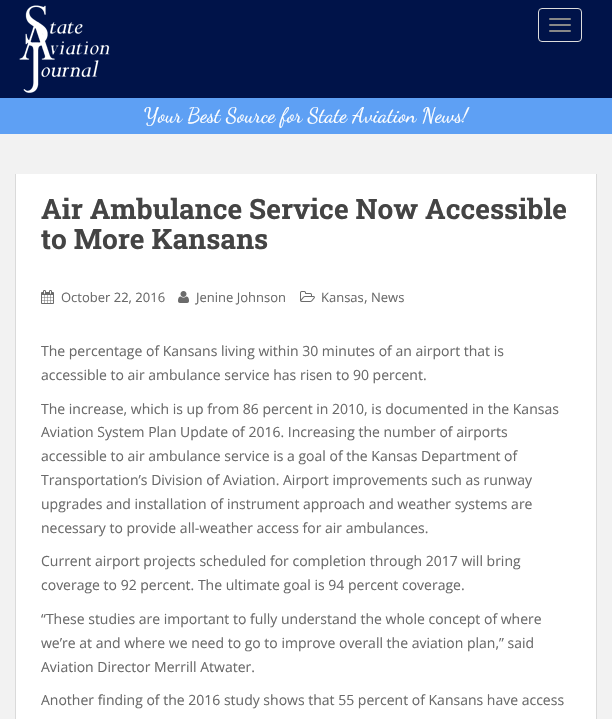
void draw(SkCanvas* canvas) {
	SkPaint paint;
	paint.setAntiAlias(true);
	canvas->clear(0xfff2f2f2);
	paint.setColor(0xff001349);
	canvas->drawRect(SkRect::MakeXYWH(0, 0, 612, 98), paint);
	canvas->drawImageRect(SkImages::DeferredFromEncodedData(SkData::MakeFromFileName("img1.png")), SkRect::MakeXYWH(19, 5, 91, 88), SkSamplingOptions());
	paint.setStroke(true);
	paint.setStrokeWidth(1);
	paint.setColor(0xffdddddd);
	canvas->drawRoundRect(SkRect::MakeXYWH(538.5, 8.5, 43, 33), 3.5, 3.5, paint);
	paint.setStroke(false);
	paint.setColor(0xff888888);
	canvas->drawRoundRect(SkRect::MakeXYWH(549, 18, 22, 2), 1, 1, paint);
	canvas->drawRoundRect(SkRect::MakeXYWH(549, 24, 22, 2), 1, 1, paint);
	canvas->drawRoundRect(SkRect::MakeXYWH(549, 30, 22, 2), 1, 1, paint);
	paint.setColor(0xff5ea0f4);
	canvas->drawRect(SkRect::MakeXYWH(0, 98, 612, 36), paint);
	SkFont f1(fontMgr->matchFamilyStyle("Dancing Script", SkFontStyle::Normal()), 21);
	f1.setSubpixel(true);
	paint.setColor(0xffffffff);
	canvas->drawString("Your Best Source for State Aviation News!", 144, 122, f1, paint);
	canvas->drawRect(SkRect::MakeXYWH(16, 174, 580, 545), paint);
	paint.setColor(0xffdadada);
	canvas->drawRect(SkRect::MakeXYWH(596, 174, 1, 545), paint);
	canvas->drawRect(SkRect::MakeXYWH(15, 174, 1, 545), paint);
	SkFont f2(fontMgr->matchFamilyStyle("Roboto Slab", SkFontStyle::Bold()), 28);
	f2.setSubpixel(true);
	paint.setColor(0xff444444);
	canvas->drawString("Air Ambulance Service Now Accessible", 41, 219, f2, paint);
	canvas->drawString("to More Kansans", 41, 249, f2, paint);
	canvas->drawImageRect(SkImages::DeferredFromEncodedData(SkData::MakeFromFileName("img2.png")), SkRect::MakeXYWH(41, 290, 13, 14), SkSamplingOptions());
	SkFont f3(fontMgr->matchFamilyStyle("Open Sans", SkFontStyle::Normal()), 13);
	f3.setSubpixel(true);
	paint.setColor(0xff6b6b6b);
	canvas->drawString("October 22, 2016", 61, 302, f3, paint);
	canvas->drawImageRect(SkImages::DeferredFromEncodedData(SkData::MakeFromFileName("img3.png")), SkRect::MakeXYWH(178, 291, 11, 12), SkSamplingOptions());
	canvas->drawString("Jenine Johnson", 196, 302, f3, paint);
	canvas->drawImageRect(SkImages::DeferredFromEncodedData(SkData::MakeFromFileName("img4.png")), SkRect::MakeXYWH(300, 291, 15, 11), SkSamplingOptions());
	canvas->drawString("Kansas", 321, 302, f3, paint);
	SkFont f4(fontMgr->matchFamilyStyle("Open Sans", SkFontStyle::Normal()), 14);
	f4.setSubpixel(true);
	canvas->drawString(",", 364, 302, f4, paint);
	canvas->drawString("News", 371, 302, f3, paint);
	canvas->drawString("The percentage of Kansans living within 30 minutes of an airport that is", 41, 356, f4, paint);
	canvas->drawString("accessible to air ambulance service has risen to 90 percent.", 41, 380, f4, paint);
	canvas->drawString("The increase, which is up from 86 percent in 2010, is documented in the Kansas", 41, 414, f4, paint);
	canvas->drawString("Aviation System Plan Update of 2016. Increasing the number of airports", 41, 437, f4, paint);
	canvas->drawString("accessible to air ambulance service is a goal of the Kansas Department of", 41, 461, f4, paint);
	canvas->drawString("Transportation’s Division of Aviation. Airport improvements such as runway", 41, 485, f4, paint);
	canvas->drawString("upgrades and installation of instrument approach and weather systems are", 41, 509, f4, paint);
	canvas->drawString("necessary to provide all-weather access for air ambulances.", 41, 533, f4, paint);
	canvas->drawString("Current airport projects scheduled for completion through 2017 will bring", 41, 566, f4, paint);
	canvas->drawString("coverage to 92 percent. The ultimate goal is 94 percent coverage.", 41, 590, f4, paint);
	canvas->drawString("“These studies are important to fully understand the whole concept of where", 41, 624, f4, paint);
	canvas->drawString("we’re at and where we need to go to improve overall the aviation plan,” said", 41, 648, f4, paint);
	canvas->drawString("Aviation Director Merrill Atwater.", 41, 672, f4, paint);
	canvas->drawString("Another finding of the 2016 study shows that 55 percent of Kansans have access", 41, 705, f4, paint);
}
